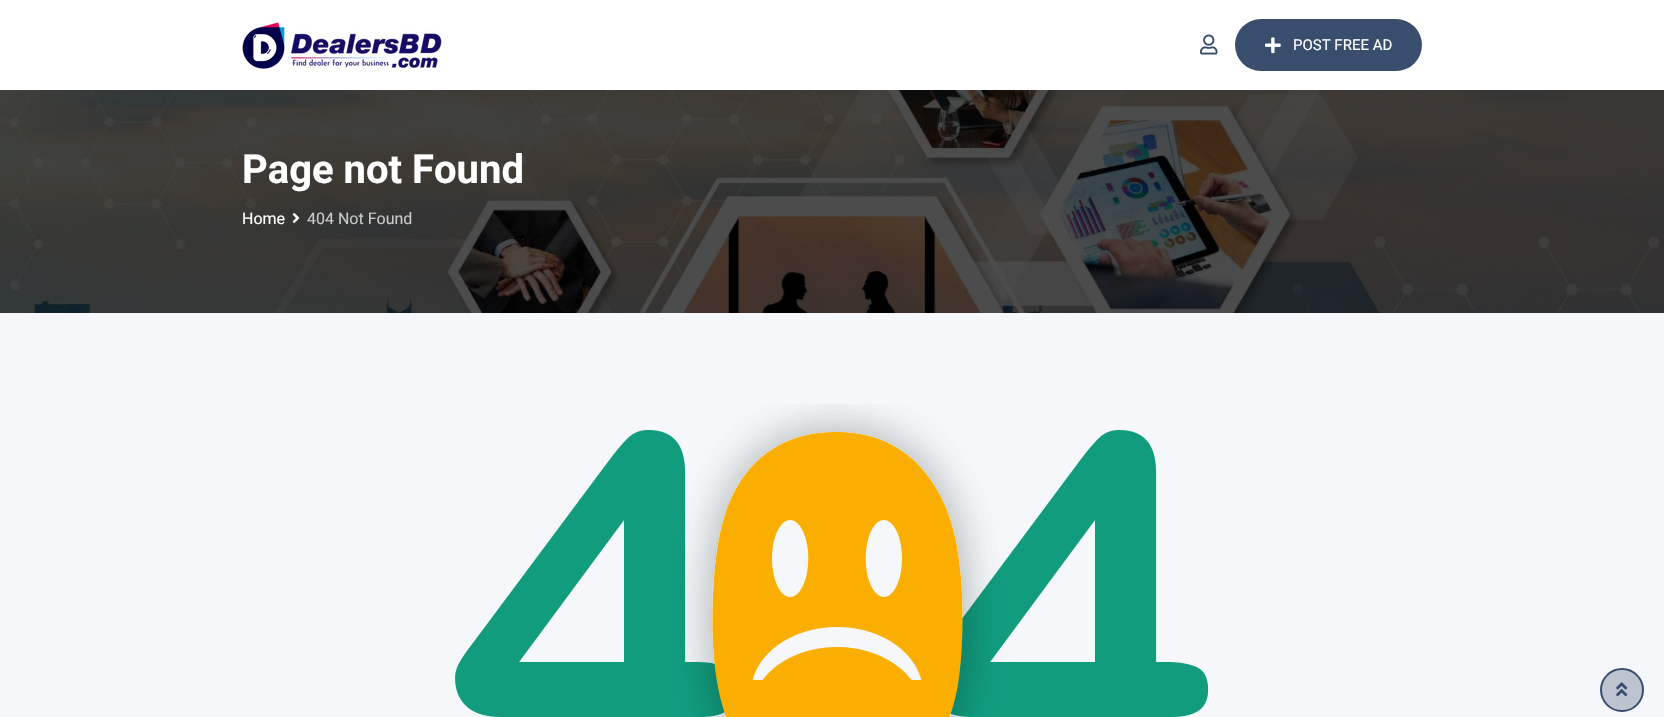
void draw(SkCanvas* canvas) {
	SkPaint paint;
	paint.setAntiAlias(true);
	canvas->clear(0xffffffff);
	canvas->drawImageRect(SkImages::DeferredFromEncodedData(SkData::MakeFromFileName("img1.png")), SkRect::MakeXYWH(242, 22, 200, 47), SkSamplingOptions());
	canvas->drawImageRect(SkImages::DeferredFromEncodedData(SkData::MakeFromFileName("img2.png")), SkRect::MakeXYWH(1200, 34, 18, 21), SkSamplingOptions());
	paint.setColor(0xff394e6d);
	canvas->drawRoundRect(SkRect::MakeXYWH(1235, 19, 187, 52), 26, 26, paint);
	canvas->drawImageRect(SkImages::DeferredFromEncodedData(SkData::MakeFromFileName("img3.png")), SkRect::MakeXYWH(1265, 37, 16, 17), SkSamplingOptions());
	SkFont f1(fontMgr->matchFamilyStyle("Roboto", SkFontStyle::Normal()), 15);
	f1.setSubpixel(true);
	paint.setColor(0xffffffff);
	canvas->drawString("POST FREE AD", 1293, 50, f1, paint);
	paint.setColor(0xfff5f7fa);
	canvas->drawRect(SkRect::MakeXYWH(0, 313, 1664, 404), paint);
	canvas->drawImageRect(SkImages::DeferredFromEncodedData(SkData::MakeFromFileName("img4.png")), SkRect::MakeXYWH(0, 90, 1664, 223), SkSamplingOptions());
	SkFont f2(fontMgr->matchFamilyStyle("Roboto", SkFontStyle::Bold()), 40);
	f2.setSubpixel(true);
	paint.setColor(0xffffffff);
	canvas->drawString("Page not Found", 242, 183, f2, paint);
	SkFont f3(fontMgr->matchFamilyStyle("Roboto", SkFontStyle::Normal()), 16);
	f3.setSubpixel(true);
	canvas->drawString("Home", 242, 224, f3, paint);
	canvas->drawImageRect(SkImages::DeferredFromEncodedData(SkData::MakeFromFileName("img5.png")), SkRect::MakeXYWH(292, 213, 8, 10), SkSamplingOptions());
	paint.setColor(0xffcacaca);
	canvas->drawString("404 Not Found", 307, 224, f3, paint);
	canvas->drawImageRect(SkImages::DeferredFromEncodedData(SkData::MakeFromFileName("img6.png")), SkRect::MakeXYWH(455, 404, 754, 313), SkSamplingOptions());
	paint.setColor(0xffbdc4d0);
	canvas->drawCircle(1622, 690, 21, paint);
	paint.setStroke(true);
	paint.setStrokeWidth(2);
	paint.setColor(0xff394e6d);
	canvas->drawCircle(1622, 690, 21, paint);
	canvas->drawImageRect(SkImages::DeferredFromEncodedData(SkData::MakeFromFileName("img7.png")), SkRect::MakeXYWH(1616, 682, 12, 15), SkSamplingOptions());
}
